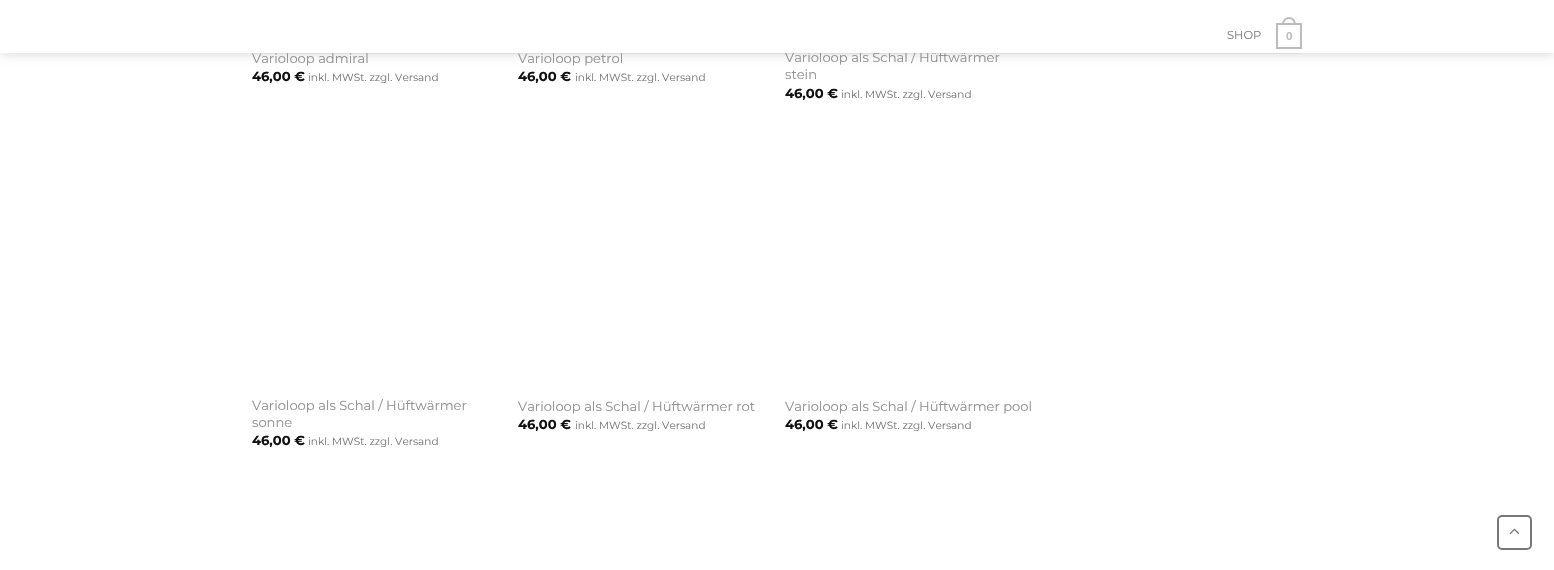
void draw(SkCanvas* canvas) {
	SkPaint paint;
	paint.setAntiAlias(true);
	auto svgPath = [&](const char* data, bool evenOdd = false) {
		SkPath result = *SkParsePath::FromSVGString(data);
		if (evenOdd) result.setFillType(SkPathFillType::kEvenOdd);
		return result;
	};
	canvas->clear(0xffffffff);
	paint.setColor(0x26000000);
	paint.setMaskFilter(SkMaskFilter::MakeBlur(kNormal_SkBlurStyle, 5));
	canvas->drawRect(SkRect::MakeXYWH(1, 1, 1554, 53), paint);
	paint.setMaskFilter(nullptr);
	SkFont f1(fontMgr->matchFamilyStyle("Montserrat", SkFontStyle::Normal()), 13.1);
	f1.setSubpixel(true);
	paint.setColor(0xff919191);
	canvas->drawString("Varioloop als Schal / Hüftwärmer", 785, 62, f1, paint);
	paint.setColor(0xffffffff);
	canvas->drawRect(SkRect::MakeXYWH(0, 0, 1554, 53), paint);
	SkFont f2(fontMgr->matchFamilyStyle("Montserrat", SkFontStyle::Normal()), 11.5);
	f2.setSubpixel(true);
	paint.setColor(0xff7d7d7d);
	canvas->drawString("SHOP", 1227, 39, f2, paint);
	paint.setStroke(true);
	paint.setStrokeWidth(2);
	paint.setColor(0xffbcbcbc);
	canvas->drawRect(SkRect::MakeXYWH(1277, 24, 24, 24), paint);
	paint.setStroke(false);
	canvas->drawPath(svgPath("M1289 17C1293.5 17 1296 21 1296 25H1282C1282 21 1284.5 17 1289 17ZM1289 19C1292.5 19 1294 22 1294 25H1284C1284 22 1285.5 19 1289 19Z", true), paint);
	SkFont f3(fontMgr->matchFamilyStyle("Liberation Sans", SkFontStyle::Bold()), 11.5);
	f3.setSubpixel(true);
	canvas->drawString("0", 1286, 40, f3, paint);
	paint.setColor(0x1a777777);
	canvas->drawRect(SkRect::MakeXYWH(252, 53, 1050, 1), paint);
	paint.setColor(0xff919191);
	canvas->drawString("Varioloop admiral", 252, 63, f1, paint);
	SkFont f4(fontMgr->matchFamilyStyle("Montserrat", SkFontStyle::Bold()), 13.1);
	f4.setSubpixel(true);
	paint.setColor(0xff111111);
	canvas->drawString("46,00 €", 252, 81, f4, paint);
	SkFont f5(fontMgr->matchFamilyStyle("Montserrat", SkFontStyle::Normal()), 10.5);
	f5.setSubpixel(true);
	paint.setColor(0xff777777);
	canvas->drawString("inkl. MWSt. zzgl. Versand", 308, 81, f5, paint);
	paint.setColor(0xff919191);
	canvas->drawString("Varioloop petrol", 518, 63, f1, paint);
	paint.setColor(0xff111111);
	canvas->drawString("46,00 €", 518, 81, f4, paint);
	paint.setColor(0xff777777);
	canvas->drawString("inkl. MWSt. zzgl. Versand", 575, 81, f5, paint);
	paint.setColor(0xff919191);
	canvas->drawString("stein", 785, 79, f1, paint);
	paint.setColor(0xff111111);
	canvas->drawString("46,00 €", 785, 98, f4, paint);
	paint.setColor(0xff777777);
	canvas->drawString("inkl. MWSt. zzgl. Versand", 841, 98, f5, paint);
	paint.setColor(0xff919191);
	canvas->drawString("Varioloop als Schal / Hüftwärmer", 252, 410, f1, paint);
	canvas->drawString("sonne", 252, 427, f1, paint);
	paint.setColor(0xff111111);
	canvas->drawString("46,00 €", 252, 445, f4, paint);
	paint.setColor(0xff777777);
	canvas->drawString("inkl. MWSt. zzgl. Versand", 308, 445, f5, paint);
	paint.setColor(0xff919191);
	canvas->drawString("Varioloop als Schal / Hüftwärmer rot", 518, 411, f1, paint);
	paint.setColor(0xff111111);
	canvas->drawString("46,00 €", 518, 429, f4, paint);
	paint.setColor(0xff777777);
	canvas->drawString("inkl. MWSt. zzgl. Versand", 575, 429, f5, paint);
	paint.setColor(0xff919191);
	canvas->drawString("Varioloop als Schal / Hüftwärmer pool", 785, 411, f1, paint);
	paint.setColor(0xff111111);
	canvas->drawString("46,00 €", 785, 429, f4, paint);
	paint.setColor(0xff777777);
	canvas->drawString("inkl. MWSt. zzgl. Versand", 841, 429, f5, paint);
	paint.setStroke(true);
	canvas->drawRoundRect(SkRect::MakeXYWH(1498, 516, 33, 33), 4, 4, paint);
	canvas->drawImageRect(SkImages::DeferredFromEncodedData(SkData::MakeFromFileName("img1.png")), SkRect::MakeXYWH(1509, 528, 11, 6), SkSamplingOptions());
}
